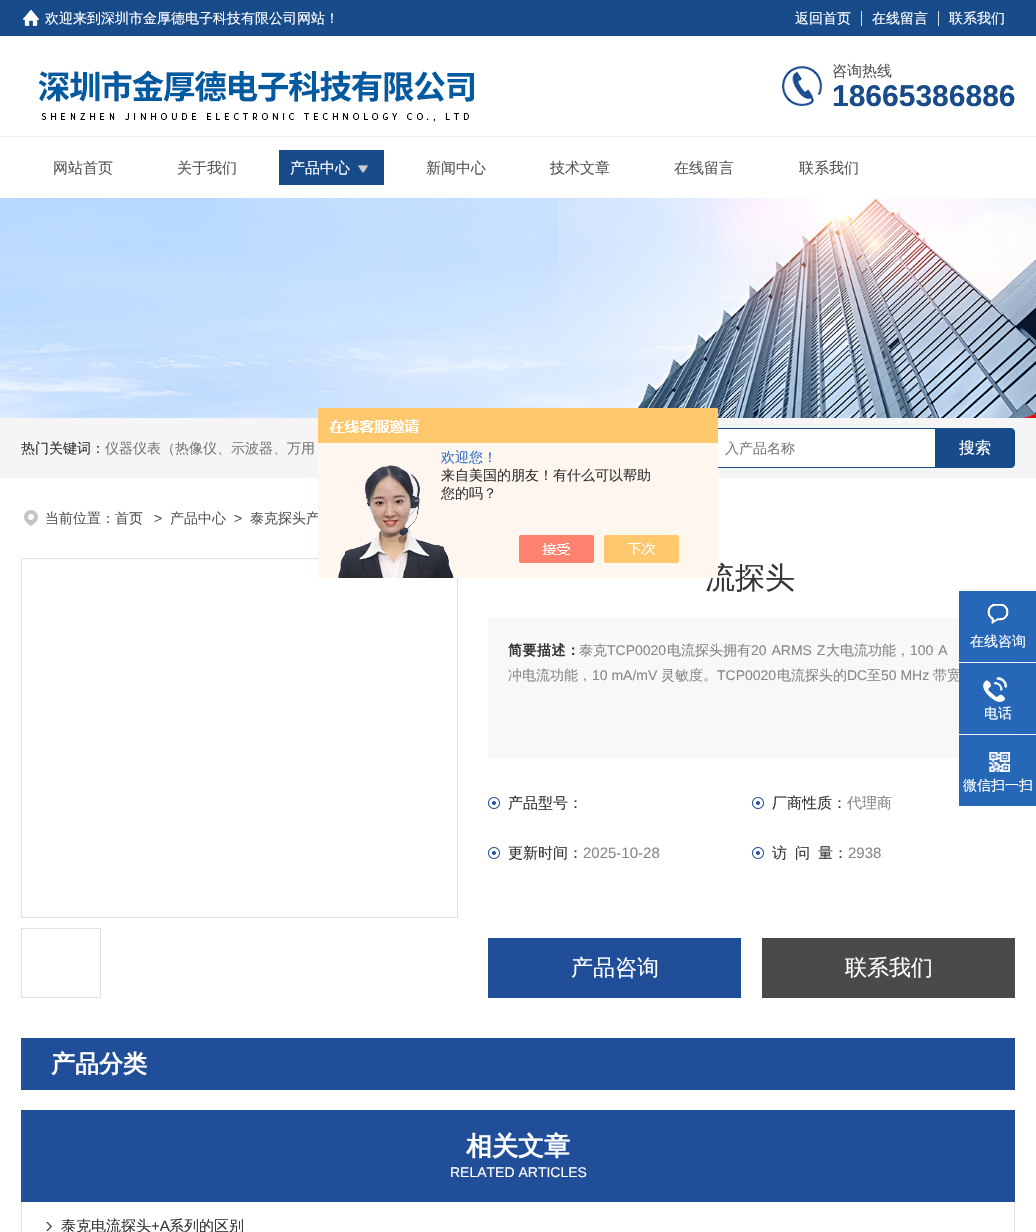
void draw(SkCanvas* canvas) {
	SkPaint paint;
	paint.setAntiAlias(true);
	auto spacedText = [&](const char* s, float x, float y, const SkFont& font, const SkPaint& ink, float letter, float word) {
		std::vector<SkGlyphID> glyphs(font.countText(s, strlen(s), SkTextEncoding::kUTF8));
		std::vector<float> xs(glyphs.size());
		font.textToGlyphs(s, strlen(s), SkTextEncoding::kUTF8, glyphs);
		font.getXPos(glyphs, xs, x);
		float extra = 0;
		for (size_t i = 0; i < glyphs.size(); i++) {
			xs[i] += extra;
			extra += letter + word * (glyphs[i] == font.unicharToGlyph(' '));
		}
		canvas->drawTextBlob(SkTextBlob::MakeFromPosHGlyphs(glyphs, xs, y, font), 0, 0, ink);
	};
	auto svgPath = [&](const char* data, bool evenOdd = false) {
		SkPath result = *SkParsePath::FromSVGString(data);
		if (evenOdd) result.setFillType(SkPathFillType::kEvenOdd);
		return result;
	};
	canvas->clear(0xffffffff);
	paint.setColor(0xff174b89);
	canvas->drawRect(SkRect::MakeXYWH(0, 0, 1036, 36), paint);
	canvas->drawImageRect(SkImages::DeferredFromEncodedData(SkData::MakeFromFileName("img1.png")), SkRect::MakeXYWH(23, 10, 16, 16), SkSamplingOptions());
	SkFont f1(fontMgr->matchFamilyStyle("WenQuanYi Zen Hei", SkFontStyle(500, SkFontStyle::kNormal_Width, SkFontStyle::kUpright_Slant)), 14);
	f1.setSubpixel(true);
	paint.setColor(0xffffffff);
	canvas->drawString("欢迎来到深圳市金厚德电子科技有限公司网站！", 45, 23, f1, paint);
	canvas->drawString("返回首页", 795, 23, f1, paint);
	paint.setColor(0xffdfdfdf);
	canvas->drawRect(SkRect::MakeXYWH(861, 11, 1, 15), paint);
	paint.setColor(0xffffffff);
	canvas->drawString("在线留言", 872, 23, f1, paint);
	paint.setColor(0xffdfdfdf);
	canvas->drawRect(SkRect::MakeXYWH(938, 11, 1, 15), paint);
	paint.setColor(0xffffffff);
	canvas->drawString("联系我们", 949, 23, f1, paint);
	canvas->drawImageRect(SkImages::DeferredFromEncodedData(SkData::MakeFromFileName("img2.png")), SkRect::MakeXYWH(38, 67, 436, 55), SkSamplingOptions());
	canvas->drawImageRect(SkImages::DeferredFromEncodedData(SkData::MakeFromFileName("img3.png")), SkRect::MakeXYWH(782, 66, 40, 40), SkSamplingOptions());
	SkFont f2(fontMgr->matchFamilyStyle("WenQuanYi Zen Hei", SkFontStyle(500, SkFontStyle::kNormal_Width, SkFontStyle::kUpright_Slant)), 15);
	f2.setSubpixel(true);
	paint.setColor(0xff565656);
	canvas->drawString("咨询热线", 832, 76, f2, paint);
	SkFont f3(fontMgr->matchFamilyStyle("Liberation Sans", SkFontStyle::Bold()), 30);
	f3.setSubpixel(true);
	paint.setColor(0xff174b89);
	canvas->drawString("18665386886", 832, 106, f3, paint);
	paint.setColor(0xffeeeeee);
	canvas->drawRect(SkRect::MakeXYWH(0, 136, 1036, 1), paint);
	paint.setColor(0xff565656);
	canvas->drawString("网站首页", 53, 173, f2, paint);
	canvas->drawString("关于我们", 177, 173, f2, paint);
	paint.setColor(0xff174b89);
	canvas->drawRect(SkRect::MakeXYWH(279, 150, 105, 35), paint);
	paint.setColor(0xffffffff);
	canvas->drawString("产品中心", 290, 173, f2, paint);
	canvas->drawImageRect(SkImages::DeferredFromEncodedData(SkData::MakeFromFileName("img4.png")), SkRect::MakeXYWH(358, 164, 10, 10), SkSamplingOptions());
	paint.setColor(0xff565656);
	canvas->drawString("新闻中心", 426, 173, f2, paint);
	canvas->drawString("技术文章", 550, 173, f2, paint);
	canvas->drawString("在线留言", 674, 173, f2, paint);
	canvas->drawString("联系我们", 799, 173, f2, paint);
	canvas->drawImageRect(SkImages::DeferredFromEncodedData(SkData::MakeFromFileName("img5.png")), SkRect::MakeXYWH(0, 198, 1036, 220), SkSamplingOptions());
	paint.setColor(0xfff5f5f5);
	canvas->drawRect(SkRect::MakeXYWH(0, 418, 1036, 60), paint);
	paint.setColor(0xff32353a);
	canvas->drawString("热门关键词：", 21, 453, f1, paint);
	paint.setColor(0xff797979);
	canvas->drawString("仪器仪表（热像仪、示波器、万用", 105, 453, f1, paint);
	paint.setColor(0xffffffff);
	canvas->drawRect(SkRect::MakeXYWH(718, 429, 217, 38), paint);
	paint.setColor(0xff174b89);
	canvas->drawRect(SkRect::MakeXYWH(718, 428, 217, 1), paint);
	canvas->drawRect(SkRect::MakeXYWH(718, 467, 217, 1), paint);
	paint.setColor(0xff797979);
	canvas->drawString("入产品名称", 725, 453, f1, paint);
	paint.setColor(0xff174b89);
	canvas->drawPath(svgPath("M935 428H1011C1013 428 1015 430 1015 432V464C1015 466 1013 468 1011 468H935Z"), paint);
	SkFont f4(fontMgr->matchFamilyStyle("WenQuanYi Zen Hei", SkFontStyle(500, SkFontStyle::kNormal_Width, SkFontStyle::kUpright_Slant)), 16);
	f4.setSubpixel(true);
	paint.setColor(0xffffffff);
	canvas->drawString("搜索", 959, 453, f4, paint);
	paint.setColor(0xff565656);
	canvas->drawString("泰克探头产", 250, 523, f1, paint);
	paint.setStroke(true);
	paint.setStrokeWidth(1);
	paint.setColor(0xffdfdfdf);
	canvas->drawRect(SkRect::MakeXYWH(21.5, 558.5, 436, 359), paint);
	SkFont f5(fontMgr->matchFamilyStyle("WenQuanYi Zen Hei", SkFontStyle(500, SkFontStyle::kNormal_Width, SkFontStyle::kUpright_Slant)), 30);
	f5.setSubpixel(true);
	paint.setStroke(false);
	paint.setColor(0xff32353a);
	canvas->drawString("流探头", 705, 588, f5, paint);
	canvas->drawImageRect(SkImages::DeferredFromEncodedData(SkData::MakeFromFileName("img6.png")), SkRect::MakeXYWH(318, 408, 400, 170), SkSamplingOptions());
	paint.setColor(0xff2e6ec6);
	canvas->drawString("欢迎您！", 441, 462, f1, paint);
	paint.setColor(0xff333333);
	canvas->drawString("来自美国的朋友！有什么可以帮助", 441, 480, f1, paint);
	canvas->drawString("您的吗？", 441, 498, f1, paint);
	canvas->drawImageRect(SkImages::DeferredFromEncodedData(SkData::MakeFromFileName("img7.png")), SkRect::MakeXYWH(24, 510, 14, 16), SkSamplingOptions());
	paint.setColor(0xff565656);
	canvas->drawString("当前位置：首页", 45, 523, f1, paint);
	SkFont f6(fontMgr->matchFamilyStyle("Liberation Sans", SkFontStyle::Normal()), 14);
	f6.setSubpixel(true);
	canvas->drawString(">", 154, 523, f6, paint);
	canvas->drawString("产品中心", 170, 523, f1, paint);
	canvas->drawString(">", 234, 523, f6, paint);
	paint.setStroke(true);
	paint.setColor(0xffdfdfdf);
	canvas->drawRect(SkRect::MakeXYWH(21.5, 928.5, 79, 69), paint);
	paint.setStroke(false);
	paint.setColor(0xfff8f8f8);
	canvas->drawRect(SkRect::MakeXYWH(488, 618, 527, 140), paint);
	SkFont f7(fontMgr->matchFamilyStyle("WenQuanYi Zen Hei", SkFontStyle::Bold()), 14);
	f7.setSubpixel(true);
	paint.setColor(0xff333333);
	spacedText("简要描述：", 508, 655, f7, paint, 0.5, 0);
	paint.setColor(0xff888888);
	canvas->drawString("泰克", 579, 655, f1, paint);
	canvas->drawString("TCP0020", 607, 655, f6, paint);
	canvas->drawString("电流探头拥有", 667, 655, f1, paint);
	spacedText("20 ARMS Z", 751, 655, f6, paint, 0, 1);
	canvas->drawString("大电流功能，", 826, 655, f1, paint);
	spacedText("100 A", 910, 655, f6, paint, 0, 1);
	canvas->drawString("冲电流功能，", 508, 680, f1, paint);
	canvas->drawString("10 mA/mV", 592, 680, f6, paint);
	canvas->drawString("灵敏度。", 661, 680, f1, paint);
	canvas->drawString("TCP0020", 717, 680, f6, paint);
	canvas->drawString("电流探头的", 777, 680, f1, paint);
	canvas->drawString("DC", 847, 680, f6, paint);
	canvas->drawString("至", 867, 680, f1, paint);
	canvas->drawString("50 MHz", 881, 680, f6, paint);
	canvas->drawString("带宽", 933, 680, f1, paint);
	canvas->drawImageRect(SkImages::DeferredFromEncodedData(SkData::MakeFromFileName("img8.png")), SkRect::MakeXYWH(488, 797, 12, 12), SkSamplingOptions());
	paint.setColor(0xff333333);
	canvas->drawString("产品型号：", 508, 808, f2, paint);
	canvas->drawImageRect(SkImages::DeferredFromEncodedData(SkData::MakeFromFileName("img8.png")), SkRect::MakeXYWH(752, 797, 12, 12), SkSamplingOptions());
	canvas->drawString("厂商性质：", 772, 808, f2, paint);
	paint.setColor(0xff888888);
	canvas->drawString("代理商", 847, 808, f2, paint);
	canvas->drawImageRect(SkImages::DeferredFromEncodedData(SkData::MakeFromFileName("img8.png")), SkRect::MakeXYWH(488, 847, 12, 12), SkSamplingOptions());
	paint.setColor(0xff333333);
	canvas->drawString("更新时间：", 508, 858, f2, paint);
	SkFont f8(fontMgr->matchFamilyStyle("Liberation Sans", SkFontStyle::Normal()), 15);
	f8.setSubpixel(true);
	paint.setColor(0xff888888);
	canvas->drawString("2025-10-28", 583, 858, f8, paint);
	canvas->drawImageRect(SkImages::DeferredFromEncodedData(SkData::MakeFromFileName("img8.png")), SkRect::MakeXYWH(752, 847, 12, 12), SkSamplingOptions());
	paint.setColor(0xff333333);
	canvas->drawString("访", 772, 858, f2, paint);
	canvas->drawString("问", 795, 858, f2, paint);
	canvas->drawString("量：", 818, 858, f2, paint);
	paint.setColor(0xff888888);
	canvas->drawString("2938", 848, 858, f8, paint);
	paint.setColor(0xff204e99);
	canvas->drawRect(SkRect::MakeXYWH(488, 938, 253, 60), paint);
	SkFont f9(fontMgr->matchFamilyStyle("WenQuanYi Zen Hei", SkFontStyle(500, SkFontStyle::kNormal_Width, SkFontStyle::kUpright_Slant)), 22);
	f9.setSubpixel(true);
	paint.setColor(0xffffffff);
	canvas->drawString("产品咨询", 571, 975, f9, paint);
	paint.setColor(0xff4a4a4a);
	canvas->drawRect(SkRect::MakeXYWH(762, 938, 253, 60), paint);
	paint.setColor(0xffffffff);
	canvas->drawString("联系我们", 845, 975, f9, paint);
	paint.setColor(0xff204e99);
	canvas->drawRect(SkRect::MakeXYWH(21, 1038, 994, 52), paint);
	SkFont f10(fontMgr->matchFamilyStyle("WenQuanYi Zen Hei", SkFontStyle::Bold()), 24);
	f10.setSubpixel(true);
	paint.setColor(0xffffffff);
	canvas->drawString("产品分类", 51, 1072, f10, paint);
	paint.setColor(0xff204e99);
	canvas->drawRect(SkRect::MakeXYWH(21, 1110, 994, 92), paint);
	SkFont f11(fontMgr->matchFamilyStyle("WenQuanYi Zen Hei", SkFontStyle::Bold()), 26);
	f11.setSubpixel(true);
	paint.setColor(0xffffffff);
	canvas->drawString("相关文章", 466, 1155, f11, paint);
	canvas->drawString("RELATED ARTICLES", 450, 1177, f6, paint);
	paint.setColor(0xffdfdfdf);
	canvas->drawRect(SkRect::MakeXYWH(1014, 1202, 1, 30), paint);
	canvas->drawRect(SkRect::MakeXYWH(21, 1202, 1, 30), paint);
	canvas->drawImageRect(SkImages::DeferredFromEncodedData(SkData::MakeFromFileName("img9.png")), SkRect::MakeXYWH(46, 1222, 6, 9), SkSamplingOptions());
	paint.setColor(0xff32353a);
	canvas->drawString("泰克电流探头", 61, 1231, f2, paint);
	canvas->drawString("+A", 151, 1231, f8, paint);
	canvas->drawString("系列的区别", 169, 1231, f2, paint);
	paint.setColor(0xff2668b7);
	canvas->drawRect(SkRect::MakeXYWH(959, 591, 77, 71), paint);
	canvas->drawImageRect(SkImages::DeferredFromEncodedData(SkData::MakeFromFileName("img10.png")), SkRect::MakeXYWH(987, 604, 22, 21), SkSamplingOptions());
	paint.setColor(0xffffffff);
	canvas->drawString("在线咨询", 970, 646, f1, paint);
	paint.setColor(0xff2668b7);
	canvas->drawRect(SkRect::MakeXYWH(959, 663, 77, 71), paint);
	canvas->drawImageRect(SkImages::DeferredFromEncodedData(SkData::MakeFromFileName("img11.png")), SkRect::MakeXYWH(983, 677, 24, 25), SkSamplingOptions());
	paint.setColor(0xffffffff);
	canvas->drawString("电话", 984, 718, f1, paint);
	paint.setColor(0xff2668b7);
	canvas->drawRect(SkRect::MakeXYWH(959, 735, 77, 71), paint);
	canvas->drawImageRect(SkImages::DeferredFromEncodedData(SkData::MakeFromFileName("img12.png")), SkRect::MakeXYWH(989, 752, 21, 20), SkSamplingOptions());
	paint.setColor(0xffffffff);
	canvas->drawString("微信扫一扫", 963, 790, f1, paint);
}
